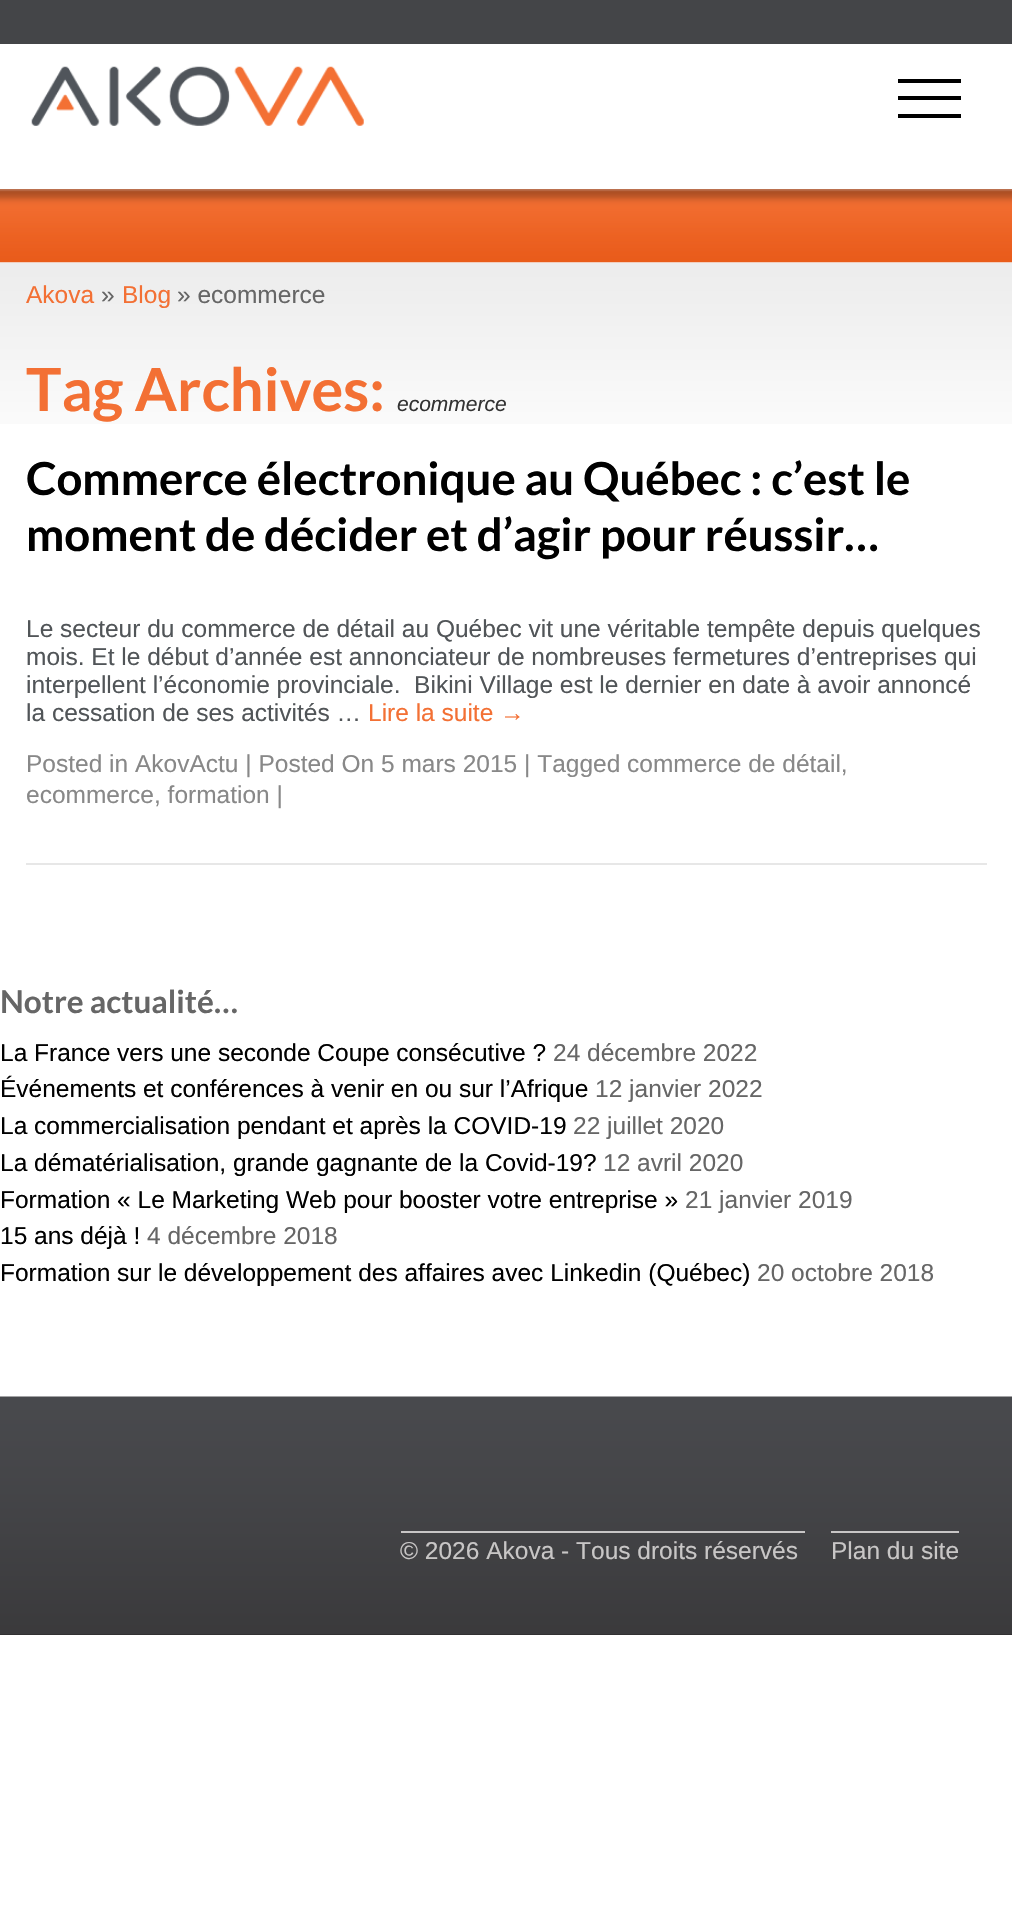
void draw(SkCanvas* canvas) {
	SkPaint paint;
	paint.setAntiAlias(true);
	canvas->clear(0xffffffff);
	canvas->drawImageRect(SkImages::DeferredFromEncodedData(SkData::MakeFromFileName("img1.png")), SkRect::MakeXYWH(0, 189, 1012, 74), SkSamplingOptions());
	paint.setColor(0xff444548);
	canvas->drawRect(SkRect::MakeXYWH(0, 0, 1012, 44), paint);
	canvas->drawImageRect(SkImages::DeferredFromEncodedData(SkData::MakeFromFileName("img2.png")), SkRect::MakeXYWH(31, 66, 333, 60), SkSamplingOptions());
	paint.setColor(0xff000000);
	canvas->drawRect(SkRect::MakeXYWH(898, 79, 63, 4), paint);
	canvas->drawRect(SkRect::MakeXYWH(898, 96, 63, 4), paint);
	canvas->drawRect(SkRect::MakeXYWH(898, 114, 63, 4), paint);
	canvas->drawImageRect(SkImages::DeferredFromEncodedData(SkData::MakeFromFileName("img3.png")), SkRect::MakeXYWH(0, 262, 1012, 162), SkSamplingOptions());
	SkFont f1(fontMgr->matchFamilyStyle("Liberation Sans", SkFontStyle::Normal()), 24.5);
	f1.setSubpixel(true);
	paint.setColor(0xfff37034);
	canvas->drawString("Akova", 26, 303, f1, paint);
	paint.setColor(0xff666666);
	canvas->drawString("»", 101, 303, f1, paint);
	paint.setColor(0xfff37034);
	canvas->drawString("Blog", 122, 303, f1, paint);
	paint.setColor(0xff666666);
	canvas->drawString("» ecommerce", 177, 303, f1, paint);
	SkFont f2(fontMgr->matchFamilyStyle("Lato", SkFontStyle::Bold()), 59.5);
	f2.setSubpixel(true);
	paint.setColor(0xfff37034);
	canvas->drawString("Tag Archives:", 26, 411, f2, paint);
	SkFont f3(fontMgr->matchFamilyStyle("Liberation Sans", SkFontStyle::Italic()), 21);
	f3.setSubpixel(true);
	paint.setColor(0xff333333);
	canvas->drawString("ecommerce", 397, 411, f3, paint);
	SkFont f4(fontMgr->matchFamilyStyle("Lato", SkFontStyle::Bold()), 45.5);
	f4.setSubpixel(true);
	paint.setColor(0xff000000);
	canvas->drawString("Commerce électronique au Québec : c’est le", 26, 495, f4, paint);
	canvas->drawString("moment de décider et d’agir pour réussir…", 26, 551, f4, paint);
	paint.setColor(0xff515558);
	canvas->drawString("Le secteur du commerce de détail au Québec vit une véritable tempête depuis quelques", 26, 637, f1, paint);
	canvas->drawString("mois. Et le début d’année est annonciateur de nombreuses fermetures d’entreprises qui", 26, 665, f1, paint);
	canvas->drawString("interpellent l’économie provinciale.  Bikini Village est le dernier en date à avoir annoncé", 26, 693, f1, paint);
	canvas->drawString("la cessation de ses activités …", 26, 721, f1, paint);
	paint.setColor(0xfff37034);
	canvas->drawString("Lire la suite →", 368, 721, f1, paint);
	paint.setColor(0xff888888);
	canvas->drawString("Posted in AkovActu | Posted On 5 mars 2015 | Tagged commerce de détail,", 26, 772, f1, paint);
	canvas->drawString("ecommerce, formation |", 26, 803, f1, paint);
	paint.setColor(0xffe7e7e7);
	canvas->drawRect(SkRect::MakeXYWH(26, 863, 961, 2), paint);
	SkFont f5(fontMgr->matchFamilyStyle("Lato", SkFontStyle::Bold()), 31.5);
	f5.setSubpixel(true);
	paint.setColor(0xff666666);
	canvas->drawString("Notre actualité…", 0, 1013, f5, paint);
	paint.setColor(0xff000000);
	canvas->drawString("La France vers une seconde Coupe consécutive ?", 0, 1061, f1, paint);
	paint.setColor(0xff666666);
	canvas->drawString("24 décembre 2022", 553, 1061, f1, paint);
	paint.setColor(0xff000000);
	canvas->drawString("Événements et conférences à venir en ou sur l’Afrique", 0, 1097, f1, paint);
	paint.setColor(0xff666666);
	canvas->drawString("12 janvier 2022", 595, 1097, f1, paint);
	paint.setColor(0xff000000);
	canvas->drawString("La commercialisation pendant et après la COVID-19", 0, 1134, f1, paint);
	paint.setColor(0xff666666);
	canvas->drawString("22 juillet 2020", 573, 1134, f1, paint);
	paint.setColor(0xff000000);
	canvas->drawString("La dématérialisation, grande gagnante de la Covid-19?", 0, 1171, f1, paint);
	paint.setColor(0xff666666);
	canvas->drawString("12 avril 2020", 603, 1171, f1, paint);
	paint.setColor(0xff000000);
	canvas->drawString("Formation « Le Marketing Web pour booster votre entreprise »", 0, 1208, f1, paint);
	paint.setColor(0xff666666);
	canvas->drawString("21 janvier 2019", 685, 1208, f1, paint);
	paint.setColor(0xff000000);
	canvas->drawString("15 ans déjà !", 0, 1244, f1, paint);
	paint.setColor(0xff666666);
	canvas->drawString("4 décembre 2018", 147, 1244, f1, paint);
	paint.setColor(0xff000000);
	canvas->drawString("Formation sur le développement des affaires avec Linkedin (Québec)", 0, 1281, f1, paint);
	paint.setColor(0xff666666);
	canvas->drawString("20 octobre 2018", 757, 1281, f1, paint);
	paint.setColor(0xff282626);
	canvas->drawRect(SkRect::MakeXYWH(0, 1634, 1012, 1), paint);
	canvas->drawImageRect(SkImages::DeferredFromEncodedData(SkData::MakeFromFileName("img4.png")), SkRect::MakeXYWH(0, 1396, 1012, 239), SkSamplingOptions());
	paint.setColor(0xffc8c6c6);
	canvas->drawString("© 2026 Akova - Tous droits réservés", 400, 1559, f1, paint);
	canvas->drawRect(SkRect::MakeXYWH(401, 1531, 404, 2), paint);
	canvas->drawString("Plan du site", 831, 1559, f1, paint);
	canvas->drawRect(SkRect::MakeXYWH(831, 1531, 128, 2), paint);
}
